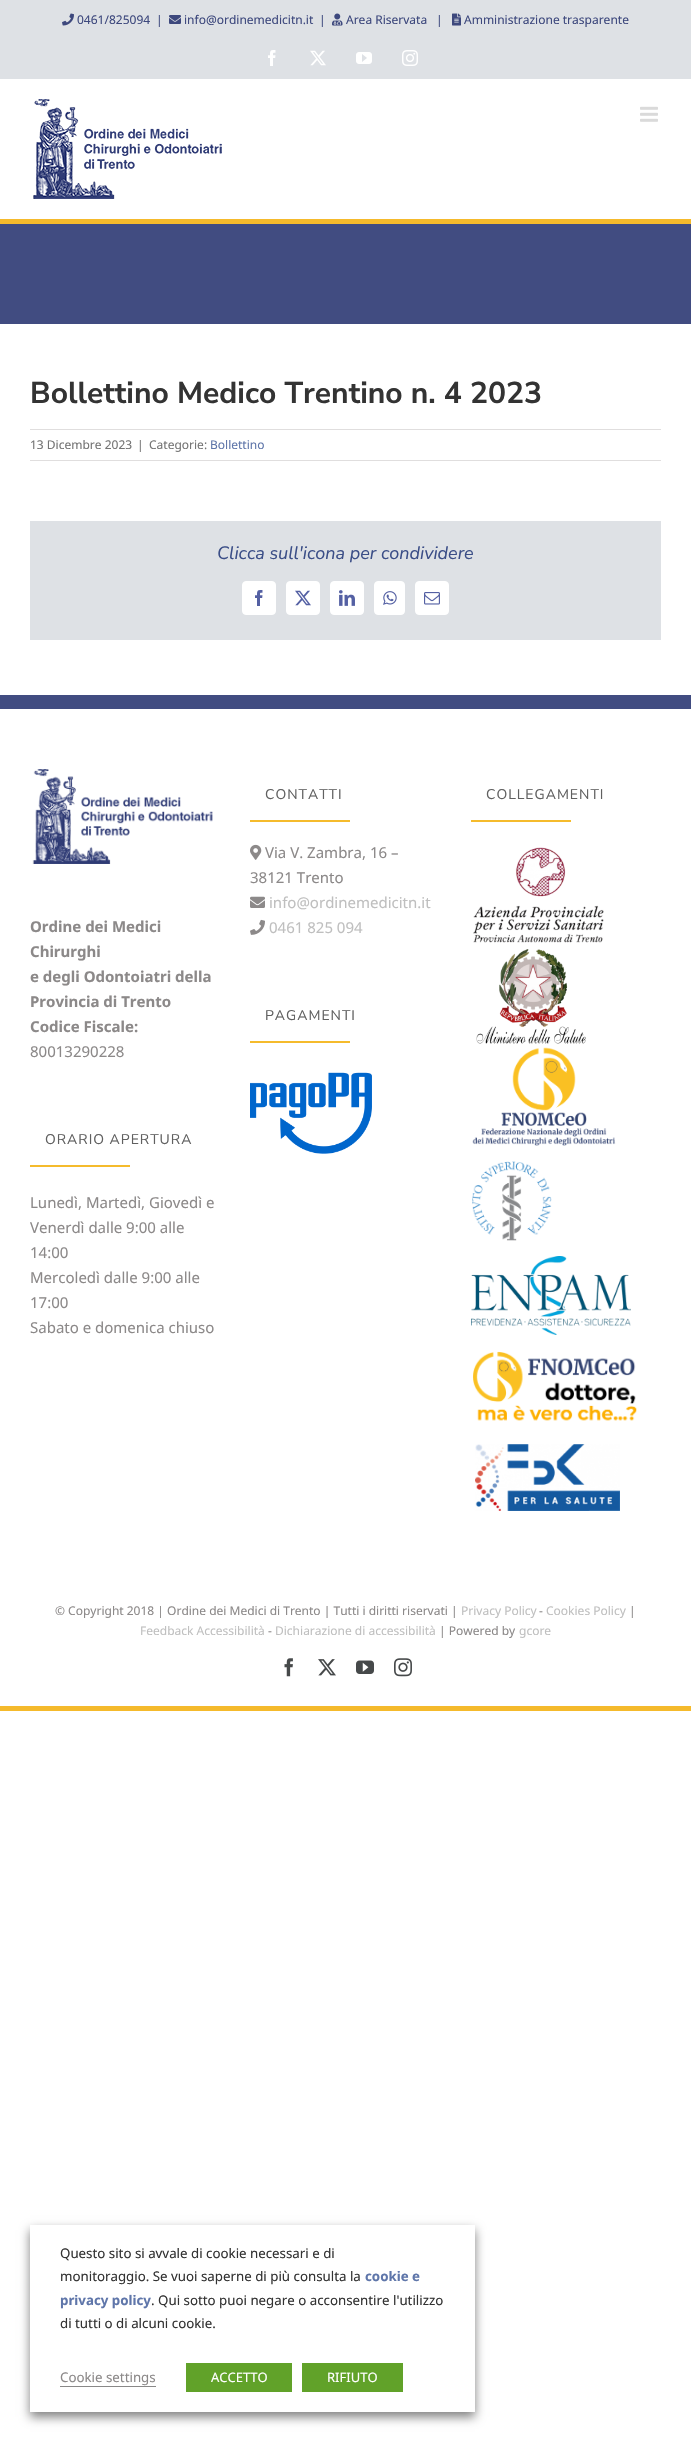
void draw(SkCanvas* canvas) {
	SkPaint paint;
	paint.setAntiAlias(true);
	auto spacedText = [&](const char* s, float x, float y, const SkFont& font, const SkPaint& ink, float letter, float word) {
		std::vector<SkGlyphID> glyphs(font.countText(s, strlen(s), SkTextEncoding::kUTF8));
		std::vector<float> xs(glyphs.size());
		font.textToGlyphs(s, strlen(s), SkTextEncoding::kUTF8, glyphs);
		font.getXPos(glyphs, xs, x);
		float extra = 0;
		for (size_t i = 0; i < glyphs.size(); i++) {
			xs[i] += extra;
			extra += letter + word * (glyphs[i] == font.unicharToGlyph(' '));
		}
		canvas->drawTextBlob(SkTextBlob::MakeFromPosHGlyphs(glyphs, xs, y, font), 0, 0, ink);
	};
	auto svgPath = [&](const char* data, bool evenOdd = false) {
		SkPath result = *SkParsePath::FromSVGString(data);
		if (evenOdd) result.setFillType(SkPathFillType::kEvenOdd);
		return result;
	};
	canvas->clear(0xffffffff);
	paint.setColor(0xffdee1e5);
	canvas->drawRect(SkRect::MakeXYWH(0, 0, 691, 79), paint);
	canvas->drawImageRect(SkImages::DeferredFromEncodedData(SkData::MakeFromFileName("img1.png")), SkRect::MakeXYWH(62, 13, 12, 13), SkSamplingOptions());
	SkFont f1(fontMgr->matchFamilyStyle("Noto Sans", SkFontStyle::Normal()), 12);
	f1.setSubpixel(true);
	paint.setColor(0xff3d487d);
	canvas->drawString("0461/825094", 77, 24, f1, paint);
	canvas->drawString("|", 156, 24, f1, paint);
	canvas->drawImageRect(SkImages::DeferredFromEncodedData(SkData::MakeFromFileName("img2.png")), SkRect::MakeXYWH(169, 15, 12, 9), SkSamplingOptions());
	canvas->drawString("info@ordinemedicitn.it", 184, 24, f1, paint);
	canvas->drawString("|", 319, 24, f1, paint);
	canvas->drawImageRect(SkImages::DeferredFromEncodedData(SkData::MakeFromFileName("img3.png")), SkRect::MakeXYWH(332, 13, 11, 13), SkSamplingOptions());
	canvas->drawString("Area Riservata", 346, 24, f1, paint);
	canvas->drawString("|", 436, 24, f1, paint);
	canvas->drawImageRect(SkImages::DeferredFromEncodedData(SkData::MakeFromFileName("img4.png")), SkRect::MakeXYWH(452, 13, 9, 13), SkSamplingOptions());
	canvas->drawString("Amministrazione trasparente", 464, 24, f1, paint);
	canvas->drawImageRect(SkImages::DeferredFromEncodedData(SkData::MakeFromFileName("img5.png")), SkRect::MakeXYWH(268, 50, 8, 16), SkSamplingOptions());
	canvas->drawImageRect(SkImages::DeferredFromEncodedData(SkData::MakeFromFileName("img6.png")), SkRect::MakeXYWH(310, 50, 16, 16), SkSamplingOptions());
	canvas->drawImageRect(SkImages::DeferredFromEncodedData(SkData::MakeFromFileName("img7.png")), SkRect::MakeXYWH(356, 52, 16, 12), SkSamplingOptions());
	canvas->drawImageRect(SkImages::DeferredFromEncodedData(SkData::MakeFromFileName("img8.png")), SkRect::MakeXYWH(402, 50, 16, 16), SkSamplingOptions());
	paint.setColor(0xfff5ba2c);
	canvas->drawRect(SkRect::MakeXYWH(0, 219, 691, 5), paint);
	canvas->drawImageRect(SkImages::DeferredFromEncodedData(SkData::MakeFromFileName("img9.png")), SkRect::MakeXYWH(33, 99, 189, 100), SkSamplingOptions());
	canvas->drawImageRect(SkImages::DeferredFromEncodedData(SkData::MakeFromFileName("img10.png")), SkRect::MakeXYWH(640, 106, 18, 16), SkSamplingOptions());
	paint.setColor(0xff414c81);
	canvas->drawRect(SkRect::MakeXYWH(0, 224, 691, 100), paint);
	SkFont f2(fontMgr->matchFamilyStyle("Nunito Sans", SkFontStyle::Bold()), 30);
	f2.setSubpixel(true);
	paint.setColor(0xff333333);
	canvas->drawString("Bollettino Medico Trentino n. 4 2023", 30, 403, f2, paint);
	paint.setColor(0xffe0dede);
	canvas->drawRect(SkRect::MakeXYWH(30, 429, 631, 1), paint);
	canvas->drawRect(SkRect::MakeXYWH(30, 460, 631, 1), paint);
	paint.setColor(0xff747474);
	canvas->drawString("13 Dicembre 2023", 30, 449, f1, paint);
	canvas->drawString("|", 137, 449, f1, paint);
	canvas->drawString("Categorie:", 149, 449, f1, paint);
	paint.setColor(0xff5f76aa);
	canvas->drawString("Bollettino", 210, 449, f1, paint);
	paint.setColor(0xffdee1e5);
	canvas->drawRect(SkRect::MakeXYWH(30, 521, 631, 119), paint);
	SkFont f3(fontMgr->matchFamilyStyle("Nunito Sans", SkFontStyle::Italic()), 18);
	f3.setSubpixel(true);
	paint.setColor(0xff3b4e87);
	canvas->drawString("Clicca sull'icona per condividere", 217, 559, f3, paint);
	paint.setColor(0xffffffff);
	canvas->drawRoundRect(SkRect::MakeXYWH(242.5, 581.5, 33, 33), 3.5, 3.5, paint);
	paint.setStroke(true);
	paint.setStrokeWidth(1);
	canvas->drawRoundRect(SkRect::MakeXYWH(242.5, 581.5, 33, 33), 3.5, 3.5, paint);
	canvas->drawImageRect(SkImages::DeferredFromEncodedData(SkData::MakeFromFileName("img11.png")), SkRect::MakeXYWH(255, 590, 8, 16), SkSamplingOptions());
	paint.setStroke(false);
	canvas->drawRoundRect(SkRect::MakeXYWH(286.5, 581.5, 33, 33), 3.5, 3.5, paint);
	paint.setStroke(true);
	canvas->drawRoundRect(SkRect::MakeXYWH(286.5, 581.5, 33, 33), 3.5, 3.5, paint);
	canvas->drawImageRect(SkImages::DeferredFromEncodedData(SkData::MakeFromFileName("img12.png")), SkRect::MakeXYWH(295, 590, 16, 16), SkSamplingOptions());
	paint.setStroke(false);
	canvas->drawRoundRect(SkRect::MakeXYWH(330.5, 581.5, 33, 33), 3.5, 3.5, paint);
	paint.setStroke(true);
	canvas->drawRoundRect(SkRect::MakeXYWH(330.5, 581.5, 33, 33), 3.5, 3.5, paint);
	canvas->drawImageRect(SkImages::DeferredFromEncodedData(SkData::MakeFromFileName("img13.png")), SkRect::MakeXYWH(339, 590, 16, 16), SkSamplingOptions());
	paint.setStroke(false);
	canvas->drawRoundRect(SkRect::MakeXYWH(374.5, 581.5, 30, 33), 3.5, 3.5, paint);
	paint.setStroke(true);
	canvas->drawRoundRect(SkRect::MakeXYWH(374.5, 581.5, 30, 33), 3.5, 3.5, paint);
	canvas->drawImageRect(SkImages::DeferredFromEncodedData(SkData::MakeFromFileName("img14.png")), SkRect::MakeXYWH(383, 591, 14, 14), SkSamplingOptions());
	paint.setStroke(false);
	canvas->drawRoundRect(SkRect::MakeXYWH(415.5, 581.5, 33, 33), 3.5, 3.5, paint);
	paint.setStroke(true);
	canvas->drawRoundRect(SkRect::MakeXYWH(415.5, 581.5, 33, 33), 3.5, 3.5, paint);
	canvas->drawImageRect(SkImages::DeferredFromEncodedData(SkData::MakeFromFileName("img15.png")), SkRect::MakeXYWH(424, 592, 16, 13), SkSamplingOptions());
	paint.setStroke(false);
	paint.setColor(0xff414c81);
	canvas->drawRect(SkRect::MakeXYWH(0, 695, 691, 14), paint);
	SkFont f4(fontMgr->matchFamilyStyle("Nunito Sans", SkFontStyle::Normal()), 14);
	f4.setSubpixel(true);
	paint.setColor(0xff606060);
	spacedText("CONTATTI", 265, 799, f4, paint, 1, 0);
	paint.setColor(0xfff5bb2c);
	canvas->drawRect(SkRect::MakeXYWH(250, 820, 100, 2), paint);
	canvas->drawImageRect(SkImages::DeferredFromEncodedData(SkData::MakeFromFileName("img16.png")), SkRect::MakeXYWH(250, 844, 12, 16), SkSamplingOptions());
	SkFont f5(fontMgr->matchFamilyStyle("Noto Sans", SkFontStyle::Normal()), 15);
	f5.setSubpixel(true);
	paint.setColor(0xff8c8989);
	canvas->drawString("Via V. Zambra, 16 –", 265, 858, f5, paint);
	canvas->drawString("38121 Trento", 250, 883, f5, paint);
	canvas->drawImageRect(SkImages::DeferredFromEncodedData(SkData::MakeFromFileName("img17.png")), SkRect::MakeXYWH(250, 896, 15, 12), SkSamplingOptions());
	paint.setColor(0xffbfbfbf);
	canvas->drawString("info@ordinemedicitn.it", 269, 908, f5, paint);
	canvas->drawImageRect(SkImages::DeferredFromEncodedData(SkData::MakeFromFileName("img18.png")), SkRect::MakeXYWH(250, 919, 15, 16), SkSamplingOptions());
	canvas->drawString("0461 825 094", 269, 933, f5, paint);
	paint.setColor(0xff606060);
	spacedText("PAGAMENTI", 265, 1020, f4, paint, 1, 0);
	paint.setColor(0xfff5bb2c);
	canvas->drawRect(SkRect::MakeXYWH(250, 1041, 100, 2), paint);
	canvas->drawImageRect(SkImages::DeferredFromEncodedData(SkData::MakeFromFileName("img19.png")), SkRect::MakeXYWH(250, 1072, 122, 82), SkSamplingOptions());
	paint.setColor(0xff606060);
	spacedText("COLLEGAMENTI", 486, 799, f4, paint, 1, 0);
	paint.setColor(0xfff5bb2c);
	canvas->drawRect(SkRect::MakeXYWH(471, 820, 100, 2), paint);
	canvas->drawImageRect(SkImages::DeferredFromEncodedData(SkData::MakeFromFileName("img20.png")), SkRect::MakeXYWH(473, 847, 131, 96), SkSamplingOptions());
	canvas->drawImageRect(SkImages::DeferredFromEncodedData(SkData::MakeFromFileName("img21.png")), SkRect::MakeXYWH(476, 949, 110, 95), SkSamplingOptions());
	canvas->drawImageRect(SkImages::DeferredFromEncodedData(SkData::MakeFromFileName("img22.png")), SkRect::MakeXYWH(472, 1047, 144, 99), SkSamplingOptions());
	canvas->drawImageRect(SkImages::DeferredFromEncodedData(SkData::MakeFromFileName("img23.png")), SkRect::MakeXYWH(472, 1161, 80, 80), SkSamplingOptions());
	canvas->drawImageRect(SkImages::DeferredFromEncodedData(SkData::MakeFromFileName("img24.png")), SkRect::MakeXYWH(471, 1256, 160, 79), SkSamplingOptions());
	canvas->drawImageRect(SkImages::DeferredFromEncodedData(SkData::MakeFromFileName("img25.png")), SkRect::MakeXYWH(473, 1351, 164, 70), SkSamplingOptions());
	canvas->drawImageRect(SkImages::DeferredFromEncodedData(SkData::MakeFromFileName("img26.png")), SkRect::MakeXYWH(475, 1444, 145, 67), SkSamplingOptions());
	canvas->drawImageRect(SkImages::DeferredFromEncodedData(SkData::MakeFromFileName("img27.png")), SkRect::MakeXYWH(32, 769, 181, 95), SkSamplingOptions());
	SkFont f6(fontMgr->matchFamilyStyle("Noto Sans", SkFontStyle::Bold()), 15);
	f6.setSubpixel(true);
	paint.setColor(0xff8c8989);
	canvas->drawString("Ordine dei Medici", 30, 932, f6, paint);
	canvas->drawString("Chirurghi", 30, 957, f6, paint);
	canvas->drawString("e degli Odontoiatri della", 30, 982, f6, paint);
	canvas->drawString("Provincia di Trento", 30, 1007, f6, paint);
	canvas->drawString("Codice Fiscale:", 30, 1032, f6, paint);
	canvas->drawString("80013290228", 30, 1057, f5, paint);
	paint.setColor(0xff606060);
	spacedText("ORARIO APERTURA", 45, 1144, f4, paint, 1, 0);
	paint.setColor(0xfff5bb2c);
	canvas->drawRect(SkRect::MakeXYWH(30, 1165, 100, 2), paint);
	paint.setColor(0xff8c8989);
	canvas->drawString("Lunedì, Martedì, Giovedì e", 30, 1208, f5, paint);
	canvas->drawString("Venerdì dalle 9:00 alle", 30, 1233, f5, paint);
	canvas->drawString("14:00", 30, 1258, f5, paint);
	canvas->drawString("Mercoledì dalle 9:00 alle", 30, 1283, f5, paint);
	canvas->drawString("17:00", 30, 1308, f5, paint);
	canvas->drawString("Sabato e domenica chiuso", 30, 1333, f5, paint);
	paint.setColor(0xfff5ba2c);
	canvas->drawRect(SkRect::MakeXYWH(0, 1706, 691, 5), paint);
	paint.setColor(0xff8c8989);
	canvas->drawString("© Copyright 2018 | Ordine dei Medici di Trento | Tutti i diritti riservati |", 55, 1615, f1, paint);
	paint.setColor(0xffbfbfbf);
	canvas->drawString("Privacy Policy", 461, 1615, f1, paint);
	paint.setColor(0xff8c8989);
	canvas->drawString("-", 539, 1615, f1, paint);
	paint.setColor(0xffbfbfbf);
	canvas->drawString("Cookies Policy", 546, 1615, f1, paint);
	paint.setColor(0xff8c8989);
	canvas->drawString("|", 629, 1615, f1, paint);
	paint.setColor(0xffbfbfbf);
	canvas->drawString("Feedback Accessibilità", 140, 1635, f1, paint);
	paint.setColor(0xff8c8989);
	canvas->drawString("-", 268, 1635, f1, paint);
	paint.setColor(0xffbfbfbf);
	canvas->drawString("Dichiarazione di accessibilità", 275, 1635, f1, paint);
	paint.setColor(0xff8c8989);
	canvas->drawString("| Powered by", 439, 1635, f1, paint);
	paint.setColor(0xffbfbfbf);
	canvas->drawString("gcore", 519, 1635, f1, paint);
	canvas->drawImageRect(SkImages::DeferredFromEncodedData(SkData::MakeFromFileName("img28.png")), SkRect::MakeXYWH(284, 1658, 9, 19), SkSamplingOptions());
	canvas->drawImageRect(SkImages::DeferredFromEncodedData(SkData::MakeFromFileName("img29.png")), SkRect::MakeXYWH(318, 1659, 18, 17), SkSamplingOptions());
	canvas->drawImageRect(SkImages::DeferredFromEncodedData(SkData::MakeFromFileName("img30.png")), SkRect::MakeXYWH(356, 1660, 18, 14), SkSamplingOptions());
	canvas->drawImageRect(SkImages::DeferredFromEncodedData(SkData::MakeFromFileName("img31.png")), SkRect::MakeXYWH(394, 1658, 18, 19), SkSamplingOptions());
	canvas->save();
	canvas->clipPath(svgPath("M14 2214H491V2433H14ZM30 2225H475V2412H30Z", true), true);
	paint.setColor(0x80000000);
	paint.setMaskFilter(SkMaskFilter::MakeBlur(kNormal_SkBlurStyle, 5));
	canvas->drawRect(SkRect::MakeXYWH(30, 2230, 445, 187), paint);
	paint.setMaskFilter(nullptr);
	canvas->restore();
	SkFont f7(fontMgr->matchFamilyStyle("Noto Sans", SkFontStyle::Normal()), 13.3);
	f7.setSubpixel(true);
	paint.setColor(0xff333333);
	canvas->drawString("Questo sito si avvale di cookie necessari e di", 60, 2258, f7, paint);
	canvas->drawString("monitoraggio. Se vuoi saperne di più consulta la", 60, 2281, f7, paint);
	SkFont f8(fontMgr->matchFamilyStyle("Noto Sans", SkFontStyle::Bold()), 13.3);
	f8.setSubpixel(true);
	paint.setColor(0xff5f76aa);
	canvas->drawString("cookie e", 365, 2281, f8, paint);
	canvas->drawString("privacy policy", 60, 2305, f8, paint);
	paint.setColor(0xff333333);
	canvas->drawString(". Qui sotto puoi negare o acconsentire l'utilizzo", 151, 2305, f7, paint);
	canvas->drawString("di tutti o di alcuni cookie.", 60, 2328, f7, paint);
	paint.setColor(0xff8c8989);
	canvas->drawString("Cookie settings", 60, 2382, f7, paint);
	paint.setColor(0xff898888);
	canvas->drawRect(SkRect::MakeXYWH(60, 2386, 96, 1), paint);
	paint.setColor(0xff61a229);
	canvas->drawRect(SkRect::MakeXYWH(186, 2363, 106, 29), paint);
	SkFont f9(fontMgr->matchFamilyStyle("Noto Sans", SkFontStyle::Normal()), 13);
	f9.setSubpixel(true);
	paint.setColor(0xffffffff);
	canvas->drawString("ACCETTO", 211, 2382, f9, paint);
	paint.setColor(0xff61a229);
	canvas->drawRect(SkRect::MakeXYWH(302, 2363, 101, 29), paint);
	paint.setColor(0xffffffff);
	canvas->drawString("RIFIUTO", 327, 2382, f9, paint);
}
